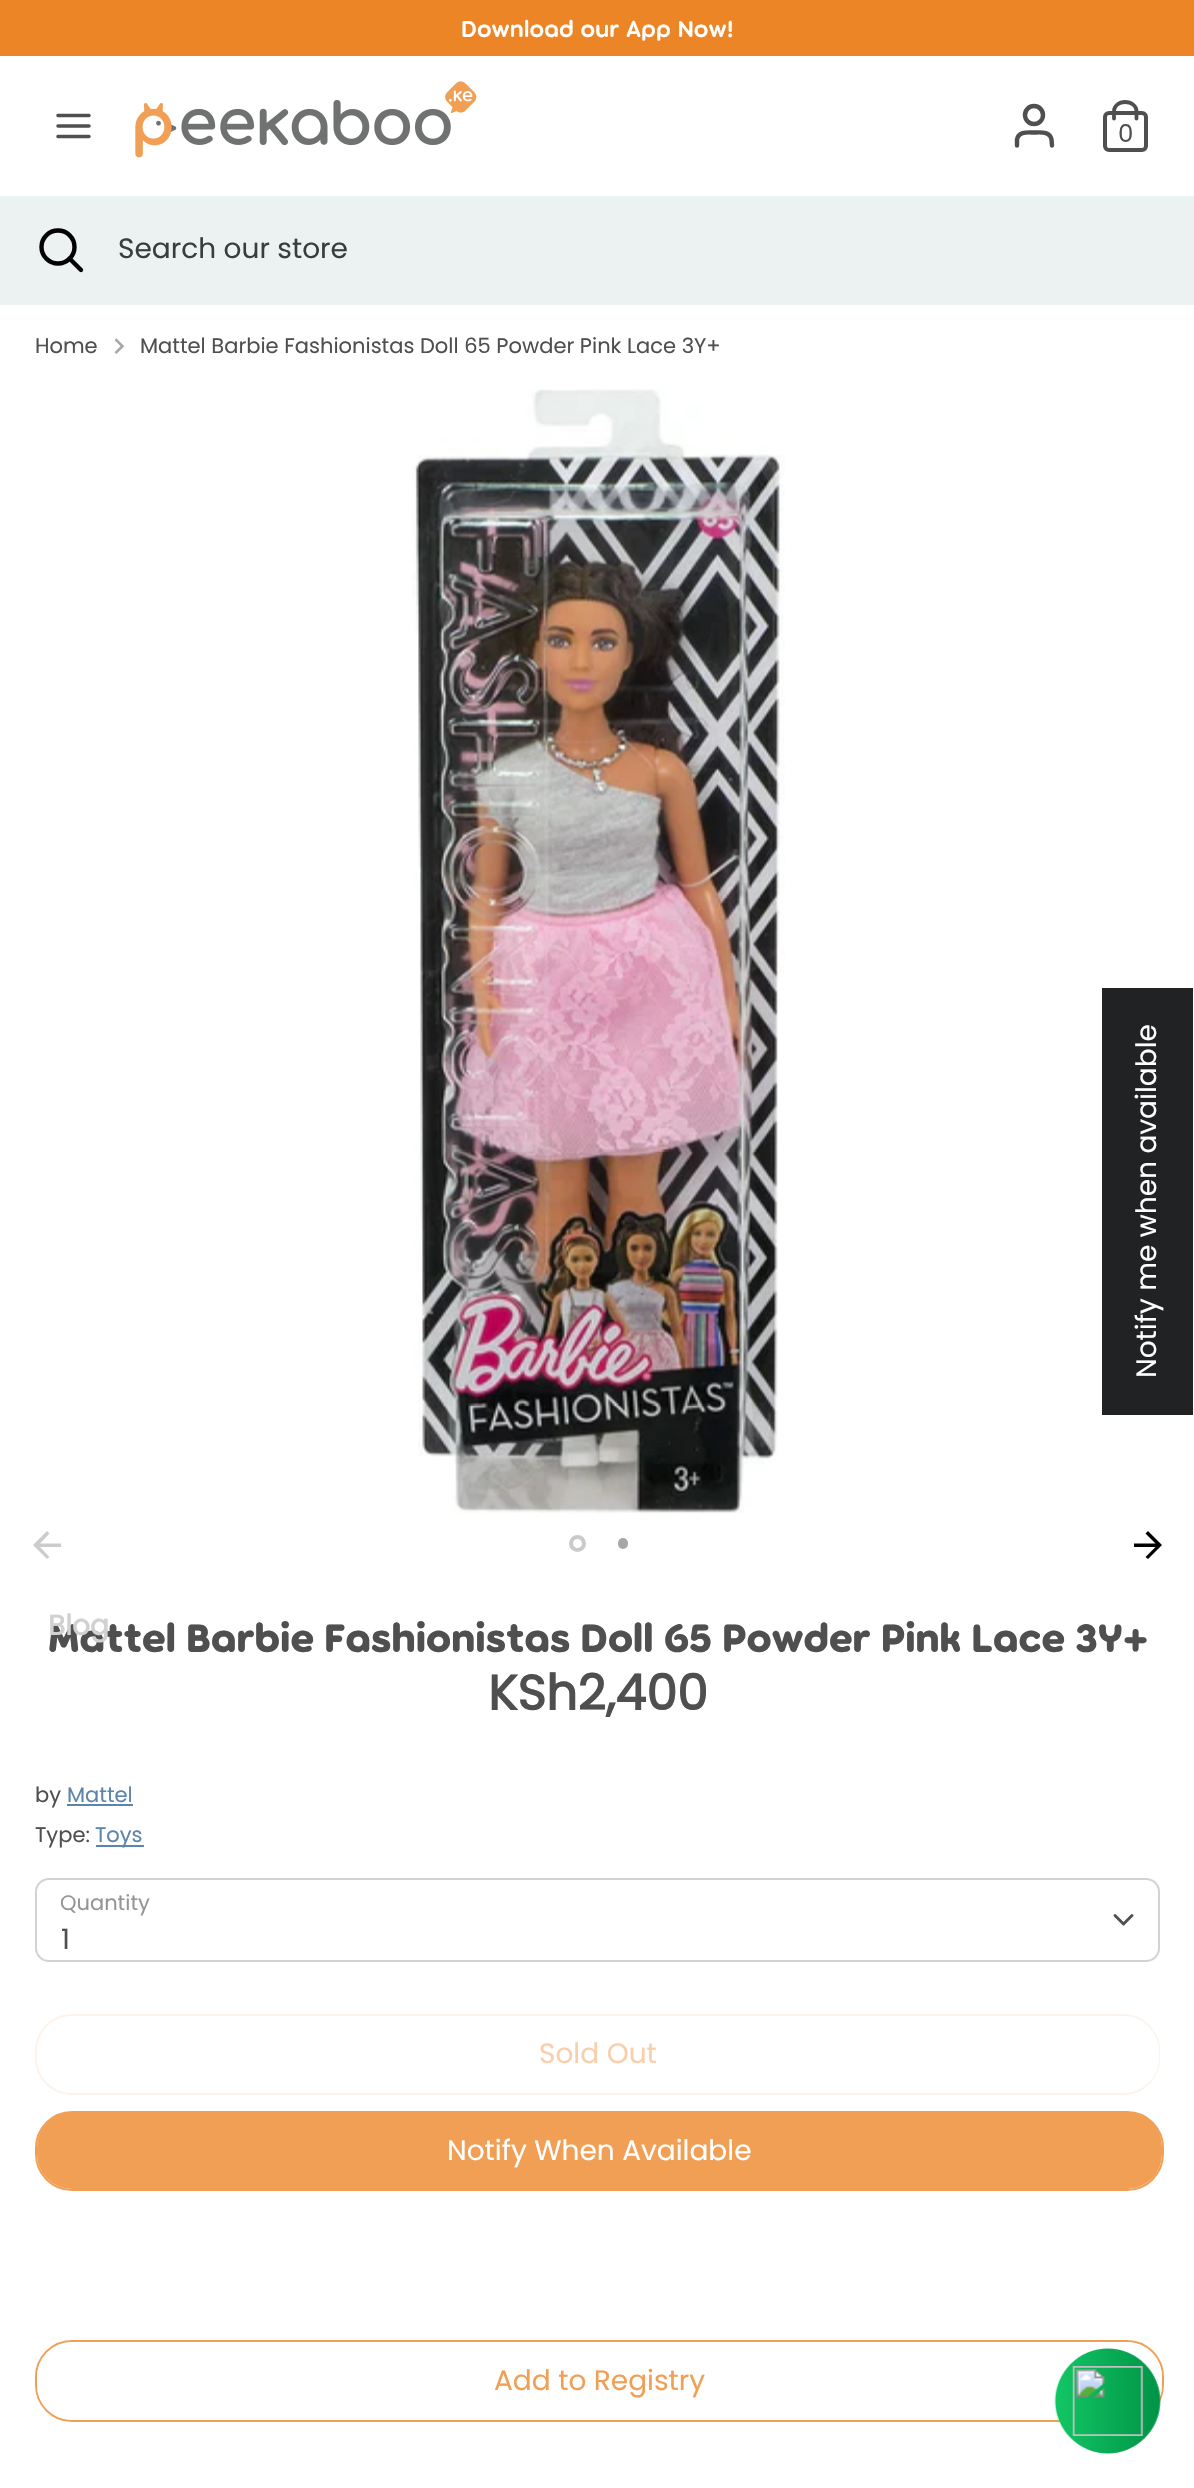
void draw(SkCanvas* canvas) {
	SkPaint paint;
	paint.setAntiAlias(true);
	auto svgPath = [&](const char* data, bool evenOdd = false) {
		SkPath result = *SkParsePath::FromSVGString(data);
		if (evenOdd) result.setFillType(SkPathFillType::kEvenOdd);
		return result;
	};
	canvas->clear(0xffffffff);
	paint.setColor(0xffec8525);
	canvas->drawRect(SkRect::MakeXYWH(0, 0, 1194, 56), paint);
	SkFont f1(fontMgr->matchFamilyStyle("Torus", SkFontStyle(600, SkFontStyle::kNormal_Width, SkFontStyle::kUpright_Slant)), 24.5);
	f1.setSubpixel(true);
	paint.setColor(0xffffffff);
	canvas->drawString("Download our App Now!", 461, 37, f1, paint);
	paint.setStroke(true);
	paint.setStrokeWidth(3.5);
	paint.setStrokeCap(SkPaint::kRound_Cap);
	paint.setColor(0xff4f4f4f);
	canvas->drawPath(svgPath("M58 126H89M58 115.5H89M58 136.5H89"), paint);
	canvas->drawImageRect(SkImages::DeferredFromEncodedData(SkData::MakeFromFileName("img1.png")), SkRect::MakeXYWH(135, 81, 342, 77), SkSamplingOptions());
	paint.setStrokeWidth(4.4);
	canvas->drawPath(svgPath("M1052 145.5L1051.5 139.5C1050 131 1040.5 132.5 1034 132.5C1028 132.5 1018.5 131 1017 139.5V145.5"), paint);
	paint.setStrokeCap(SkPaint::kButt_Cap);
	canvas->drawCircle(1034, 115, 9, paint);
	paint.setStrokeWidth(4);
	canvas->drawRoundRect(SkRect::MakeXYWH(1105, 113, 41, 37), 4, 4, paint);
	paint.setStrokeWidth(3.8);
	paint.setStrokeCap(SkPaint::kRound_Cap);
	canvas->drawPath(svgPath("M1114 118.5V111C1114 106 1119 102 1125 102C1131.5 102 1136.5 106 1136.5 111V118.5"), paint);
	SkFont f2(fontMgr->matchFamilyStyle("Poppins", SkFontStyle::Normal()), 24.5);
	f2.setSubpixel(true);
	paint.setStroke(false);
	canvas->drawString("0", 1118, 142, f2, paint);
	paint.setColor(0xffecf1f2);
	canvas->drawRect(SkRect::MakeXYWH(0, 196, 1194, 109), paint);
	paint.setStroke(true);
	paint.setStrokeWidth(4.4);
	paint.setStrokeCap(SkPaint::kButt_Cap);
	paint.setColor(0xff000000);
	canvas->drawCircle(58, 247, 16.5, paint);
	paint.setStrokeCap(SkPaint::kRound_Cap);
	canvas->drawPath(svgPath("M81 270L69.5 258.5"), paint);
	SkFont f3(fontMgr->matchFamilyStyle("Poppins", SkFontStyle::Normal()), 28);
	f3.setSubpixel(true);
	paint.setStroke(false);
	paint.setColor(0xff3b3c3d);
	canvas->drawString("Search our store", 118, 258, f3, paint);
	SkFont f4(fontMgr->matchFamilyStyle("Torus", SkFontStyle::Bold()), 42);
	f4.setSubpixel(true);
	paint.setColor(0xff4f4f4f);
	canvas->drawString("Mattel Barbie Fashionistas Doll 65 Powder Pink Lace 3Y+", 48, 1652, f4, paint);
	SkFont f5(fontMgr->matchFamilyStyle("Poppins", SkFontStyle::Bold()), 28);
	f5.setSubpixel(true);
	paint.setColor(0xffd1d1d1);
	canvas->drawString("Blog", 48, 1635, f5, paint);
	SkFont f6(fontMgr->matchFamilyStyle("Poppins", SkFontStyle::Normal()), 21);
	f6.setSubpixel(true);
	paint.setColor(0xff4f4f4f);
	canvas->drawString("Home", 35, 353, f6, paint);
	canvas->drawImageRect(SkImages::DeferredFromEncodedData(SkData::MakeFromFileName("img2.png")), SkRect::MakeXYWH(114, 338, 11, 16), SkSamplingOptions());
	canvas->drawString("Mattel Barbie Fashionistas Doll 65 Powder Pink Lace 3Y+", 140, 353, f6, paint);
	paint.setColor(0xff202223);
	canvas->drawRect(SkRect::MakeXYWH(1102, 988, 91, 427), paint);
	paint.setColor(0xffffffff);
	canvas->save();
	canvas->rotate(-90, 1156, 1378);
	canvas->drawString("Notify me when available", 1156, 1378, f3, paint);
	canvas->restore();
	canvas->drawImageRect(SkImages::DeferredFromEncodedData(SkData::MakeFromFileName("img3.png")), SkRect::MakeXYWH(412, 389, 373, 1125), SkSamplingOptions());
	paint.setColor(0xffcccccc);
	canvas->drawPath(svgPath("M61 1543.5H40L49.5 1533.5L47 1531L33 1545L47 1559L49.5 1557L40 1547H61Z"), paint);
	paint.setColor(0xff000000);
	canvas->drawPath(svgPath("M1148 1531L1145.5 1533.5L1155.5 1543.5H1134V1547H1155.5L1145.5 1557L1148 1559L1162 1545Z"), paint);
	paint.setStroke(true);
	paint.setStrokeWidth(4);
	paint.setStrokeCap(SkPaint::kButt_Cap);
	paint.setColor(0xffcacaca);
	canvas->drawCircle(577.5, 1543.5, 6.5, paint);
	paint.setStroke(false);
	paint.setColor(0xffa7a7a7);
	canvas->drawRoundRect(SkRect::MakeXYWH(618, 1538, 10, 11), 5, 5, paint);
	SkFont f7(fontMgr->matchFamilyStyle("Poppins", SkFontStyle::Bold()), 49);
	f7.setSubpixel(true);
	paint.setColor(0xff4f4f4f);
	canvas->drawString("KSh2,400", 488, 1710, f7, paint);
	canvas->drawString("by", 35, 1802, f6, paint);
	paint.setColor(0xff5b85aa);
	canvas->drawString("Mattel", 67, 1802, f6, paint);
	canvas->drawRect(SkRect::MakeXYWH(67, 1804, 66, 2), paint);
	paint.setColor(0xff4f4f4f);
	canvas->drawString("Type:", 35, 1842, f6, paint);
	paint.setColor(0xff5b85aa);
	canvas->drawRect(SkRect::MakeXYWH(96, 1845, 48, 2), paint);
	canvas->drawString("Toys", 95, 1842, f6, paint);
	paint.setStroke(true);
	paint.setStrokeWidth(2);
	paint.setColor(0xffd3d3d3);
	canvas->drawRoundRect(SkRect::MakeXYWH(36, 1879, 1123, 82), 13, 13, paint);
	paint.setStroke(false);
	paint.setColor(0xff959595);
	canvas->drawString("Quantity", 60, 1910, f6, paint);
	paint.setStroke(true);
	paint.setStrokeWidth(2.9);
	paint.setStrokeCap(SkPaint::kRound_Cap);
	paint.setStrokeJoin(SkPaint::kRound_Join);
	paint.setColor(0xff4f4f4f);
	canvas->drawPath(svgPath("M1115 1915.5L1123.5 1924L1132 1915.5"), paint);
	paint.setStroke(false);
	canvas->drawString("1", 61, 1949, f3, paint);
	paint.setStroke(true);
	paint.setStrokeWidth(2);
	paint.setStrokeCap(SkPaint::kButt_Cap);
	paint.setStrokeJoin(SkPaint::kMiter_Join);
	paint.setColor(0xfffdf3ea);
	canvas->drawRoundRect(SkRect::MakeXYWH(36, 2015, 1123, 79), 36, 36, paint);
	paint.setStroke(false);
	paint.setColor(0xffffffff);
	canvas->drawRoundRect(SkRect::MakeXYWH(37, 2016, 1122, 77), 35, 35, paint);
	paint.setColor(0xfff8cfaa);
	canvas->drawString("Sold Out", 539, 2063, f3, paint);
	paint.setStroke(true);
	paint.setColor(0xfff09f54);
	canvas->drawRoundRect(SkRect::MakeXYWH(36, 2112, 1127, 78), 36, 36, paint);
	paint.setStroke(false);
	canvas->drawRoundRect(SkRect::MakeXYWH(37, 2112, 1125, 77), 35, 35, paint);
	paint.setColor(0xffffffff);
	canvas->drawString("Notify When Available", 447, 2160, f3, paint);
	paint.setStroke(true);
	paint.setColor(0xfff09f54);
	canvas->drawRoundRect(SkRect::MakeXYWH(36, 2341, 1127, 80), 36, 36, paint);
	paint.setStroke(false);
	paint.setColor(0xffffffff);
	canvas->drawRoundRect(SkRect::MakeXYWH(37, 2342, 1125, 78), 35, 35, paint);
	paint.setColor(0xfff09f54);
	canvas->drawString("Add to Registry", 494, 2390, f3, paint);
	canvas->drawImageRect(SkImages::DeferredFromEncodedData(SkData::MakeFromFileName("img4.png")), SkRect::MakeXYWH(1054, 2348, 107, 106), SkSamplingOptions());
}
